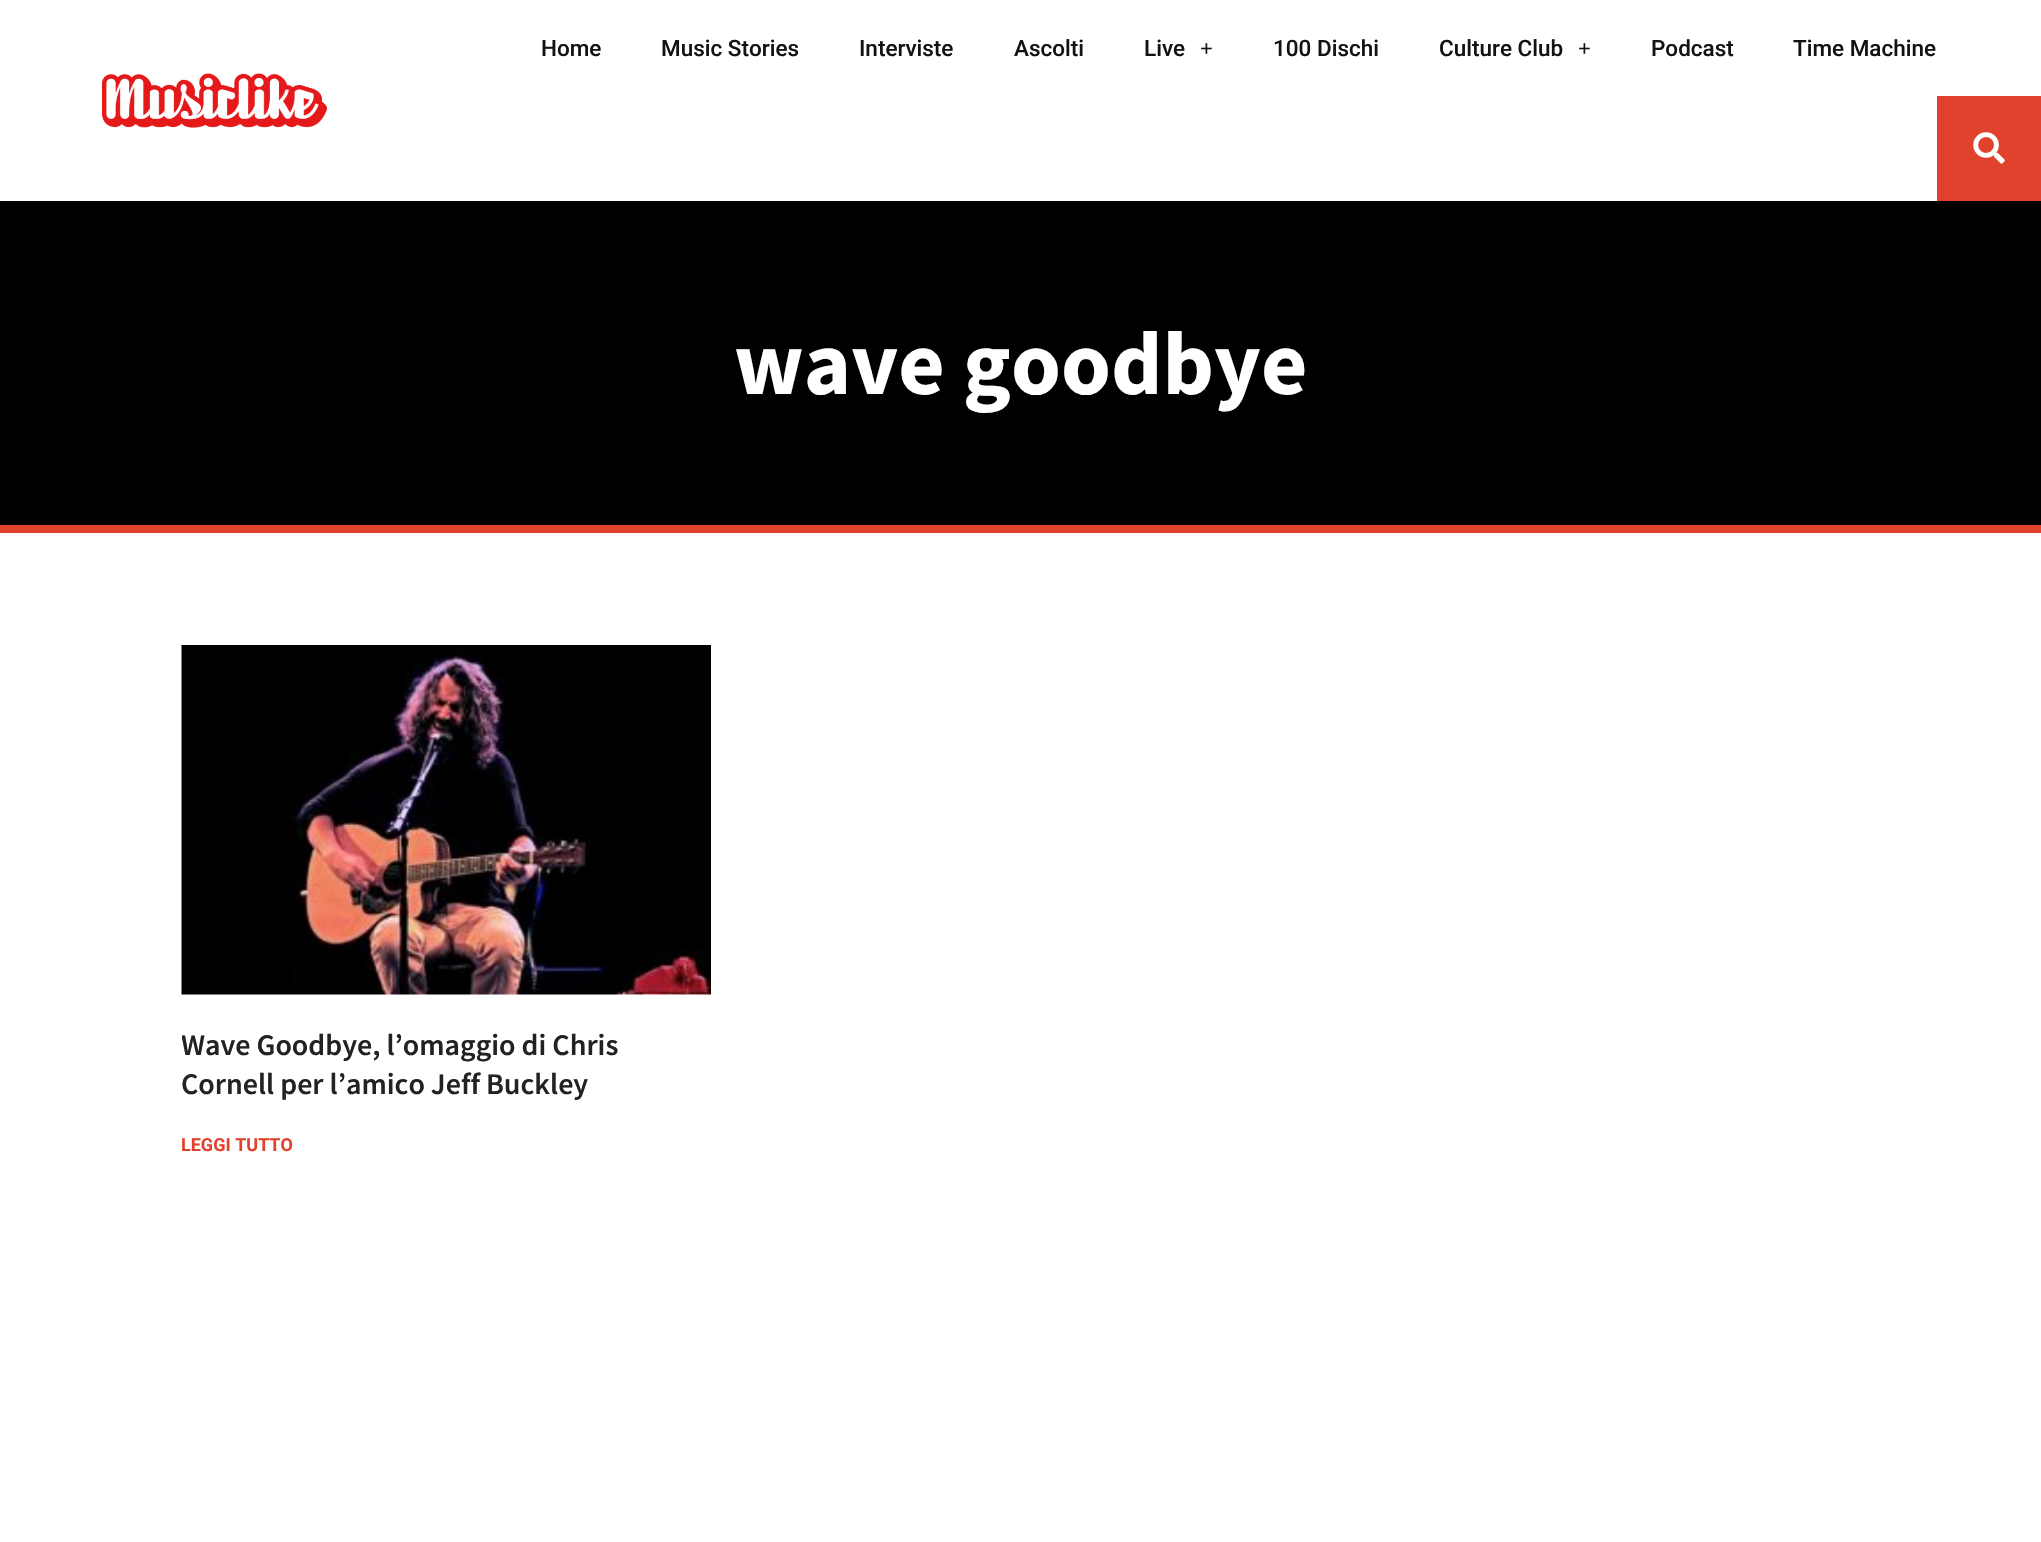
void draw(SkCanvas* canvas) {
	SkPaint paint;
	paint.setAntiAlias(true);
	canvas->clear(0xffffffff);
	SkFont f1(fontMgr->matchFamilyStyle("Roboto", SkFontStyle(500, SkFontStyle::kNormal_Width, SkFontStyle::kUpright_Slant)), 22.5);
	f1.setSubpixel(true);
	paint.setColor(0xff131313);
	canvas->drawString("Home", 541, 56, f1, paint);
	canvas->drawString("Music Stories", 661, 56, f1, paint);
	canvas->drawString("Interviste", 859, 56, f1, paint);
	canvas->drawString("Ascolti", 1014, 56, f1, paint);
	canvas->drawString("Live", 1144, 56, f1, paint);
	SkFont f2(fontMgr->matchFamilyStyle("Liberation Serif", SkFontStyle::Bold()), 22.5);
	f2.setSubpixel(true);
	canvas->drawString("+", 1200, 56, f2, paint);
	canvas->drawString("100 Dischi", 1273, 56, f1, paint);
	canvas->drawString("Culture Club", 1439, 56, f1, paint);
	canvas->drawString("+", 1578, 56, f2, paint);
	canvas->drawString("Podcast", 1651, 56, f1, paint);
	canvas->drawString("Time Machine", 1793, 56, f1, paint);
	paint.setColor(0xffe1422d);
	canvas->drawRect(SkRect::MakeXYWH(1937, 96, 104, 105), paint);
	canvas->drawImageRect(SkImages::DeferredFromEncodedData(SkData::MakeFromFileName("img1.png")), SkRect::MakeXYWH(1973, 132, 32, 32), SkSamplingOptions());
	canvas->drawImageRect(SkImages::DeferredFromEncodedData(SkData::MakeFromFileName("img2.png")), SkRect::MakeXYWH(102, 73, 226, 55), SkSamplingOptions());
	paint.setColor(0xff000000);
	canvas->drawRect(SkRect::MakeXYWH(0, 201, 2041, 324), paint);
	paint.setColor(0xffe1422d);
	canvas->drawRect(SkRect::MakeXYWH(0, 525, 2041, 8), paint);
	SkFont f3(fontMgr->matchFamilyStyle("Source Sans Pro", SkFontStyle::Bold()), 90);
	f3.setSubpixel(true);
	paint.setColor(0xffffffff);
	canvas->drawString("wave goodbye", 734, 394, f3, paint);
	canvas->drawImageRect(SkImages::DeferredFromEncodedData(SkData::MakeFromFileName("img3.png")), SkRect::MakeXYWH(181, 645, 530, 350), SkSamplingOptions());
	canvas->save();
	canvas->clipRect(SkRect::MakeXYWH(182, 645, 529, 516));
	SkFont f4(fontMgr->matchFamilyStyle("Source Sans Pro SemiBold", SkFontStyle(600, SkFontStyle::kNormal_Width, SkFontStyle::kUpright_Slant)), 30);
	f4.setSubpixel(true);
	paint.setColor(0xff222222);
	canvas->drawString("Wave Goodbye, l’omaggio di Chris", 181, 1055, f4, paint);
	canvas->restore();
	canvas->drawString("Cornell per l’amico Jeff Buckley", 181, 1094, f4, paint);
	canvas->save();
	canvas->clipRect(SkRect::MakeXYWH(182, 645, 529, 516));
	SkFont f5(fontMgr->matchFamilyStyle("Roboto", SkFontStyle::Bold()), 18);
	f5.setSubpixel(true);
	paint.setColor(0xffe1422d);
	canvas->drawString("LEGGI TUTTO", 181, 1151, f5, paint);
	canvas->restore();
}
